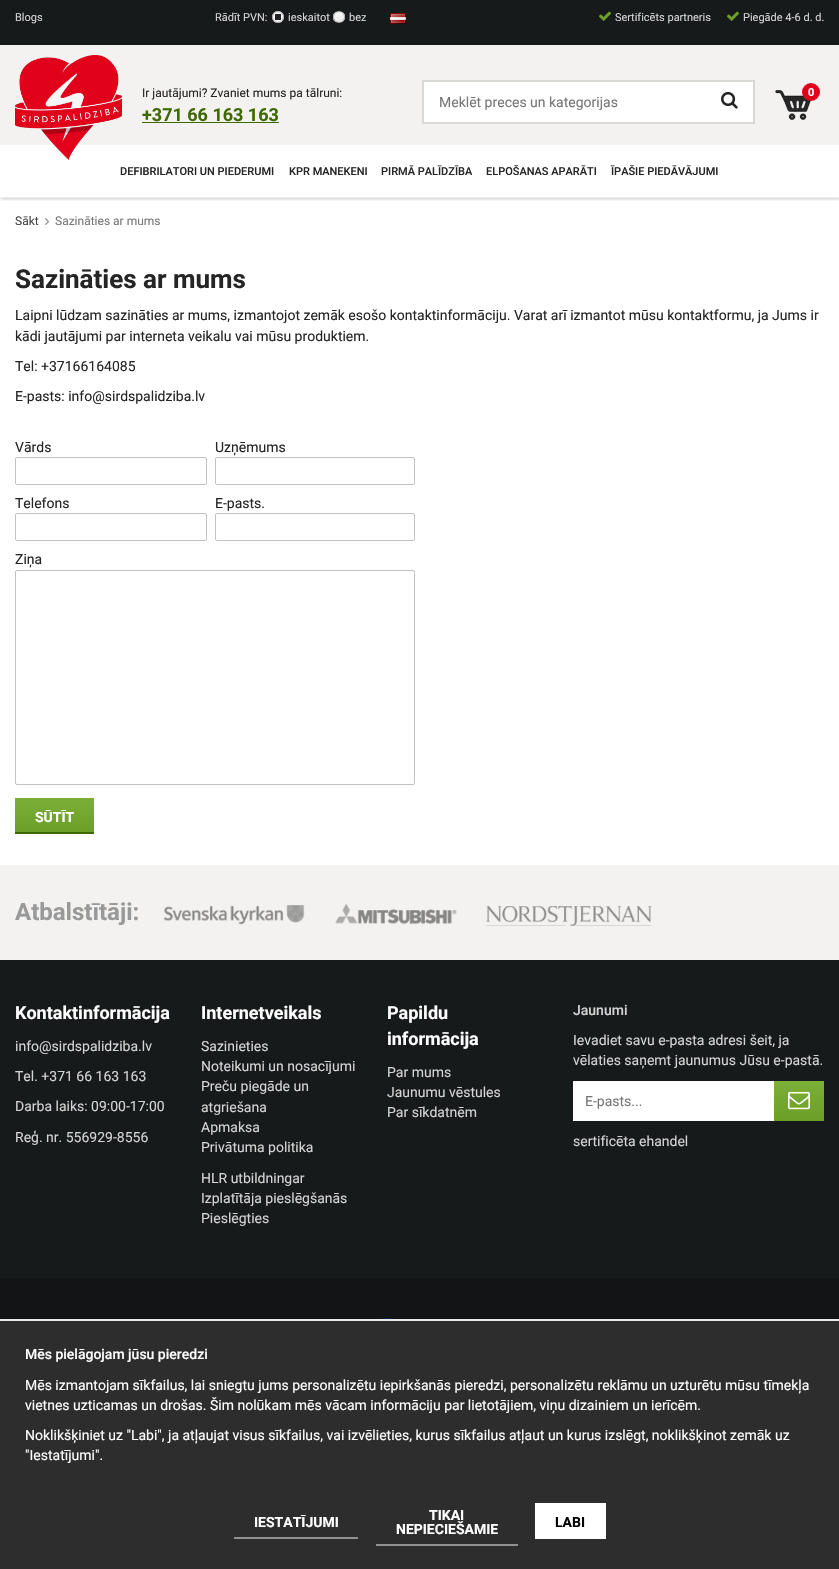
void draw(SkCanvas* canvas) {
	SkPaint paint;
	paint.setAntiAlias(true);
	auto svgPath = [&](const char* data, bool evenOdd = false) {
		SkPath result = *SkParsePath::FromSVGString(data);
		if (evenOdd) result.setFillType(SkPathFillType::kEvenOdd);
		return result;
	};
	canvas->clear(0xffffffff);
	paint.setColor(0xff161a1b);
	canvas->drawRect(SkRect::MakeXYWH(0, 0, 839, 45), paint);
	SkFont f1(fontMgr->matchFamilyStyle("Roboto", SkFontStyle::Normal()), 11);
	f1.setSubpixel(true);
	paint.setColor(0xffd3d3d3);
	canvas->drawString("Blogs", 15, 21, f1, paint);
	canvas->drawString("Rādīt PVN:", 215, 21, f1, paint);
	paint.setColor(0xfff9f9f9);
	canvas->drawCircle(278, 17, 6, paint);
	paint.setColor(0xff222222);
	canvas->drawRect(SkRect::MakeXYWH(275, 14, 6, 6), paint);
	paint.setStroke(true);
	paint.setStrokeWidth(1);
	paint.setColor(0xffa9a9a9);
	canvas->drawCircle(278, 17, 5.5, paint);
	paint.setStroke(false);
	paint.setColor(0xffd3d3d3);
	canvas->drawString("ieskaitot", 288, 21, f1, paint);
	canvas->save();
	canvas->clipPath(svgPath("M339 11C342.5 11 345 13.5 345 17C345 20.5 342.5 23 339 23C335.5 23 333 20.5 333 17C333 13.5 335.5 11 339 11Z"), true);
	{
		const SkColor colors[] = {0xfff9f9f9, 0xffe9e9e9};
		const float stops[] = {0, 1};
		const SkPoint ends[] = {{339, 12}, {339, 22}};
		paint.setShader(SkGradientShader::MakeLinear(ends, colors, stops, 2, SkTileMode::kClamp));
		paint.setAlpha(255);
	}
	canvas->drawRect(SkRect::MakeXYWH(333, 12, 12, 10), paint);
	canvas->restore();
	paint.setStroke(true);
	paint.setShader(nullptr);
	paint.setColor(0xffa9a9a9);
	canvas->drawCircle(339, 17, 5.5, paint);
	paint.setStroke(false);
	paint.setColor(0xffd3d3d3);
	canvas->drawString("bez", 349, 21, f1, paint);
	canvas->drawImageRect(SkImages::DeferredFromEncodedData(SkData::MakeFromFileName("img1.png")), SkRect::MakeXYWH(390, 13, 16, 11), SkSamplingOptions());
	canvas->drawImageRect(SkImages::DeferredFromEncodedData(SkData::MakeFromFileName("img2.png")), SkRect::MakeXYWH(599, 11, 12, 10), SkSamplingOptions());
	canvas->drawString("Sertificēts partneris", 615, 21, f1, paint);
	canvas->drawImageRect(SkImages::DeferredFromEncodedData(SkData::MakeFromFileName("img2.png")), SkRect::MakeXYWH(727, 11, 12, 10), SkSamplingOptions());
	canvas->drawString("Piegāde 4-6 d. d.", 743, 21, f1, paint);
	canvas->save();
	canvas->clipRect(SkRect::MakeXYWH(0, 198, 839, 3));
	paint.setColor(0x33000000);
	paint.setMaskFilter(SkMaskFilter::MakeBlur(kNormal_SkBlurStyle, 1.5));
	canvas->drawRect(SkRect::MakeXYWH(1, 146, 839, 53), paint);
	paint.setMaskFilter(nullptr);
	canvas->restore();
	paint.setColor(0xfff3f2f0);
	canvas->drawRect(SkRect::MakeXYWH(0, 45, 839, 100), paint);
	canvas->drawImageRect(SkImages::DeferredFromEncodedData(SkData::MakeFromFileName("img3.png")), SkRect::MakeXYWH(15, 55, 107, 105), SkSamplingOptions());
	SkFont f2(fontMgr->matchFamilyStyle("Roboto", SkFontStyle::Normal()), 12);
	f2.setSubpixel(true);
	paint.setColor(0xff252525);
	canvas->drawString("Ir jautājumi? Zvaniet mums pa tālruni:", 142, 97, f2, paint);
	SkFont f3(fontMgr->matchFamilyStyle("Roboto", SkFontStyle::Bold()), 18);
	f3.setSubpixel(true);
	paint.setColor(0xff3c6900);
	canvas->drawString("+371 66 163 163", 142, 121, f3, paint);
	canvas->drawRect(SkRect::MakeXYWH(142, 122, 137, 1), paint);
	paint.setColor(0xffffffff);
	canvas->drawRect(SkRect::MakeXYWH(423, 81, 331, 42), paint);
	paint.setStroke(true);
	paint.setStrokeWidth(2);
	paint.setColor(0xffdad8d5);
	canvas->drawRect(SkRect::MakeXYWH(423, 81, 331, 42), paint);
	SkFont f4(fontMgr->matchFamilyStyle("Roboto", SkFontStyle::Normal()), 14);
	f4.setSubpixel(true);
	paint.setStroke(false);
	paint.setColor(0xff777777);
	canvas->drawString("Meklēt preces un kategorijas", 439, 107, f4, paint);
	canvas->drawImageRect(SkImages::DeferredFromEncodedData(SkData::MakeFromFileName("img4.png")), SkRect::MakeXYWH(721, 91, 17, 18), SkSamplingOptions());
	canvas->drawImageRect(SkImages::DeferredFromEncodedData(SkData::MakeFromFileName("img5.png")), SkRect::MakeXYWH(775, 90, 36, 30), SkSamplingOptions());
	paint.setColor(0xffe3001b);
	canvas->drawCircle(811, 92, 9, paint);
	SkFont f5(fontMgr->matchFamilyStyle("Roboto", SkFontStyle::Bold()), 11);
	f5.setSubpixel(true);
	paint.setColor(0xffffffff);
	canvas->drawString("0", 808, 96, f5, paint);
	paint.setColor(0xffeeeeee);
	canvas->drawRect(SkRect::MakeXYWH(0, 197, 839, 1), paint);
	SkFont f6(fontMgr->matchFamilyStyle("Roboto", SkFontStyle(500, SkFontStyle::kNormal_Width, SkFontStyle::kUpright_Slant)), 11);
	f6.setSubpixel(true);
	paint.setColor(0xff252525);
	canvas->drawString("DEFIBRILATORI UN PIEDERUMI", 120, 175, f6, paint);
	canvas->drawString("KPR MANEKENI", 289, 175, f6, paint);
	canvas->drawString("PIRMĀ PALĪDZĪBA", 381, 175, f6, paint);
	canvas->drawString("ELPOŠANAS APARĀTI", 486, 175, f6, paint);
	canvas->drawString("ĪPAŠIE PIEDĀVĀJUMI", 611, 175, f6, paint);
	paint.setColor(0xff444444);
	canvas->drawString("Sākt", 15, 225, f2, paint);
	canvas->drawImageRect(SkImages::DeferredFromEncodedData(SkData::MakeFromFileName("img6.png")), SkRect::MakeXYWH(45, 218, 4, 7), SkSamplingOptions());
	paint.setColor(0xff777777);
	canvas->drawString("Sazināties ar mums", 55, 225, f2, paint);
	SkFont f7(fontMgr->matchFamilyStyle("Roboto", SkFontStyle::Bold()), 26);
	f7.setSubpixel(true);
	paint.setColor(0xff252525);
	canvas->drawString("Sazināties ar mums", 15, 288, f7, paint);
	canvas->drawString("Laipni lūdzam sazināties ar mums, izmantojot zemāk esošo kontaktinformāciju. Varat arī izmantot mūsu kontaktformu, ja Jums ir", 15, 320, f4, paint);
	canvas->drawString("kādi jautājumi par interneta veikalu vai mūsu produktiem.", 15, 341, f4, paint);
	canvas->drawString("Tel: +37166164085", 15, 371, f4, paint);
	canvas->drawString("E-pasts: info@sirdspalidziba.lv", 15, 401, f4, paint);
	canvas->drawString("Vārds", 15, 452, f4, paint);
	paint.setStroke(true);
	paint.setStrokeWidth(1);
	paint.setColor(0xffc2c2c2);
	canvas->drawRoundRect(SkRect::MakeXYWH(15.5, 457.5, 191, 27), 1.5, 1.5, paint);
	paint.setStroke(false);
	paint.setColor(0xff252525);
	canvas->drawString("Uzņēmums", 215, 452, f4, paint);
	paint.setStroke(true);
	paint.setColor(0xffc2c2c2);
	canvas->drawRoundRect(SkRect::MakeXYWH(215.5, 457.5, 199, 27), 1.5, 1.5, paint);
	paint.setStroke(false);
	paint.setColor(0xff252525);
	canvas->drawString("Telefons", 15, 508, f4, paint);
	paint.setStroke(true);
	paint.setColor(0xffc2c2c2);
	canvas->drawRoundRect(SkRect::MakeXYWH(15.5, 513.5, 191, 27), 1.5, 1.5, paint);
	paint.setStroke(false);
	paint.setColor(0xff252525);
	canvas->drawString("E-pasts.", 215, 508, f4, paint);
	paint.setStroke(true);
	paint.setColor(0xffc2c2c2);
	canvas->drawRoundRect(SkRect::MakeXYWH(215.5, 513.5, 199, 27), 1.5, 1.5, paint);
	paint.setStroke(false);
	paint.setColor(0xff252525);
	canvas->drawString("Ziņa", 15, 564, f4, paint);
	paint.setStroke(true);
	paint.setColor(0xffc2c2c2);
	canvas->drawRoundRect(SkRect::MakeXYWH(15.5, 570.5, 399, 214), 1.5, 1.5, paint);
	paint.setStroke(false);
	{
		const SkColor colors[] = {0xff7caf38, 0xff6c9f28};
		const float stops[] = {0, 1};
		const SkPoint ends[] = {{55, 798}, {55, 832}};
		paint.setShader(SkGradientShader::MakeLinear(ends, colors, stops, 2, SkTileMode::kClamp));
		paint.setAlpha(255);
	}
	canvas->drawRect(SkRect::MakeXYWH(15, 798, 79, 34), paint);
	paint.setShader(nullptr);
	paint.setColor(0xff3c6900);
	canvas->drawRect(SkRect::MakeXYWH(15, 832, 79, 2), paint);
	SkFont f8(fontMgr->matchFamilyStyle("Roboto", SkFontStyle::Bold()), 14);
	f8.setSubpixel(true);
	paint.setColor(0xffffffff);
	canvas->drawString("SŪTĪT", 35, 822, f8, paint);
	paint.setColor(0xfff3f2f0);
	canvas->drawRect(SkRect::MakeXYWH(0, 865, 839, 95), paint);
	SkFont f9(fontMgr->matchFamilyStyle("Roboto", SkFontStyle::Bold()), 24);
	f9.setSubpixel(true);
	paint.setColor(0xff999999);
	canvas->drawString("Atbalstītāji:", 15, 920, f9, paint);
	canvas->drawImageRect(SkImages::DeferredFromEncodedData(SkData::MakeFromFileName("img7.png")), SkRect::MakeXYWH(164, 905, 141, 20), SkSamplingOptions());
	canvas->drawImageRect(SkImages::DeferredFromEncodedData(SkData::MakeFromFileName("img8.png")), SkRect::MakeXYWH(335, 903, 122, 22), SkSamplingOptions());
	canvas->drawImageRect(SkImages::DeferredFromEncodedData(SkData::MakeFromFileName("img9.png")), SkRect::MakeXYWH(486, 906, 166, 20), SkSamplingOptions());
	paint.setColor(0xff161a1b);
	canvas->drawRect(SkRect::MakeXYWH(0, 960, 839, 318), paint);
	paint.setColor(0xffffffff);
	canvas->drawString("Kontaktinformācija", 15, 1019, f3, paint);
	paint.setColor(0xffd3d3d3);
	canvas->drawString("info@sirdspalidziba.lv", 15, 1051, f4, paint);
	canvas->drawString("Tel. +371 66 163 163", 15, 1081, f4, paint);
	canvas->drawString("Darba laiks: 09:00-17:00", 15, 1111, f4, paint);
	canvas->drawString("Reģ. nr. 556929-8556", 15, 1142, f4, paint);
	paint.setColor(0xffffffff);
	canvas->drawString("Internetveikals", 201, 1019, f3, paint);
	paint.setColor(0xffd3d3d3);
	canvas->drawString("Sazinieties", 201, 1051, f4, paint);
	canvas->drawString("Noteikumi un nosacījumi", 201, 1071, f4, paint);
	canvas->drawString("Preču piegāde un", 201, 1091, f4, paint);
	canvas->drawString("atgriešana", 201, 1112, f4, paint);
	canvas->drawString("Apmaksa", 201, 1132, f4, paint);
	canvas->drawString("Privātuma politika", 201, 1152, f4, paint);
	canvas->drawString("HLR utbildningar", 201, 1183, f4, paint);
	canvas->drawString("Izplatītāja pieslēgšanās", 201, 1203, f4, paint);
	canvas->drawString("Pieslēgties", 201, 1223, f4, paint);
	paint.setColor(0xffffffff);
	canvas->drawString("Papildu", 387, 1019, f3, paint);
	canvas->drawString("informācija", 387, 1045, f3, paint);
	paint.setColor(0xffd3d3d3);
	canvas->drawString("Par mums", 387, 1077, f4, paint);
	canvas->drawString("Jaunumu vēstules", 387, 1097, f4, paint);
	canvas->drawString("Par sīkdatnēm", 387, 1117, f4, paint);
	SkFont f10(fontMgr->matchFamilyStyle("Roboto", SkFontStyle(500, SkFontStyle::kNormal_Width, SkFontStyle::kUpright_Slant)), 14);
	f10.setSubpixel(true);
	canvas->drawString("Jaunumi", 573, 1015, f10, paint);
	canvas->drawString("Ievadiet savu e-pasta adresi šeit, ja", 573, 1045, f4, paint);
	canvas->drawString("vēlaties saņemt jaunumus Jūsu e-pastā.", 573, 1065, f4, paint);
	paint.setColor(0xffffffff);
	canvas->drawRect(SkRect::MakeXYWH(573, 1081, 201, 40), paint);
	paint.setColor(0xff777777);
	canvas->drawString("E-pasts...", 585, 1106, f4, paint);
	{
		const SkColor colors[] = {0xff7caf38, 0xff6c9f28};
		const float stops[] = {0, 1};
		const SkPoint ends[] = {{799, 1081}, {799, 1121}};
		paint.setShader(SkGradientShader::MakeLinear(ends, colors, stops, 2, SkTileMode::kClamp));
		paint.setAlpha(255);
	}
	canvas->drawRect(SkRect::MakeXYWH(774, 1081, 50, 40), paint);
	canvas->drawImageRect(SkImages::DeferredFromEncodedData(SkData::MakeFromFileName("img10.png")), SkRect::MakeXYWH(788, 1091, 22, 19), SkSamplingOptions());
	paint.setShader(nullptr);
	paint.setColor(0xffd3d3d3);
	canvas->drawString("sertificēta ehandel", 573, 1146, f4, paint);
	paint.setColor(0xff131416);
	canvas->drawRect(SkRect::MakeXYWH(0, 1278, 839, 41), paint);
	canvas->drawImageRect(SkImages::DeferredFromEncodedData(SkData::MakeFromFileName("img11.png")), SkRect::MakeXYWH(382, 1318, 11, 1), SkSamplingOptions());
	paint.setColor(0xff2d2d2d);
	canvas->drawRect(SkRect::MakeXYWH(0, 1321, 839, 248), paint);
	paint.setColor(0xffe9e9e9);
	canvas->drawRect(SkRect::MakeXYWH(0, 1319, 839, 2), paint);
	paint.setColor(0xffffffff);
	canvas->drawString("Mēs pielāgojam jūsu pieredzi", 25, 1359, f10, paint);
	canvas->drawString("Mēs izmantojam sīkfailus, lai sniegtu jums personalizētu iepirkšanās pieredzi, personalizētu reklāmu un uzturētu mūsu tīmekļa", 25, 1390, f4, paint);
	canvas->drawString("vietnes uzticamas un drošas. Šim nolūkam mēs vācam informāciju par lietotājiem, viņu dizainiem un ierīcēm.", 25, 1410, f4, paint);
	canvas->drawString("Noklikšķiniet uz \"Labi\", ja atļaujat visus sīkfailus, vai izvēlieties, kurus sīkfailus atļaut un kurus izslēgt, noklikšķinot zemāk uz", 25, 1440, f4, paint);
	canvas->drawString("\"Iestatījumi\".", 25, 1460, f4, paint);
	paint.setColor(0xff919191);
	canvas->drawRect(SkRect::MakeXYWH(234, 1537, 124, 2), paint);
	paint.setColor(0xffffffff);
	canvas->drawString("IESTATĪJUMI", 254, 1527, f8, paint);
	paint.setColor(0xff919191);
	canvas->drawRect(SkRect::MakeXYWH(376, 1544, 142, 2), paint);
	paint.setColor(0xffffffff);
	canvas->drawString("TIKAI", 429, 1520, f8, paint);
	canvas->drawString("NEPIECIEŠAMIE", 396, 1534, f8, paint);
	canvas->drawRect(SkRect::MakeXYWH(535, 1503, 71, 36), paint);
	paint.setColor(0xff000000);
	canvas->drawString("LABI", 555, 1527, f8, paint);
}
